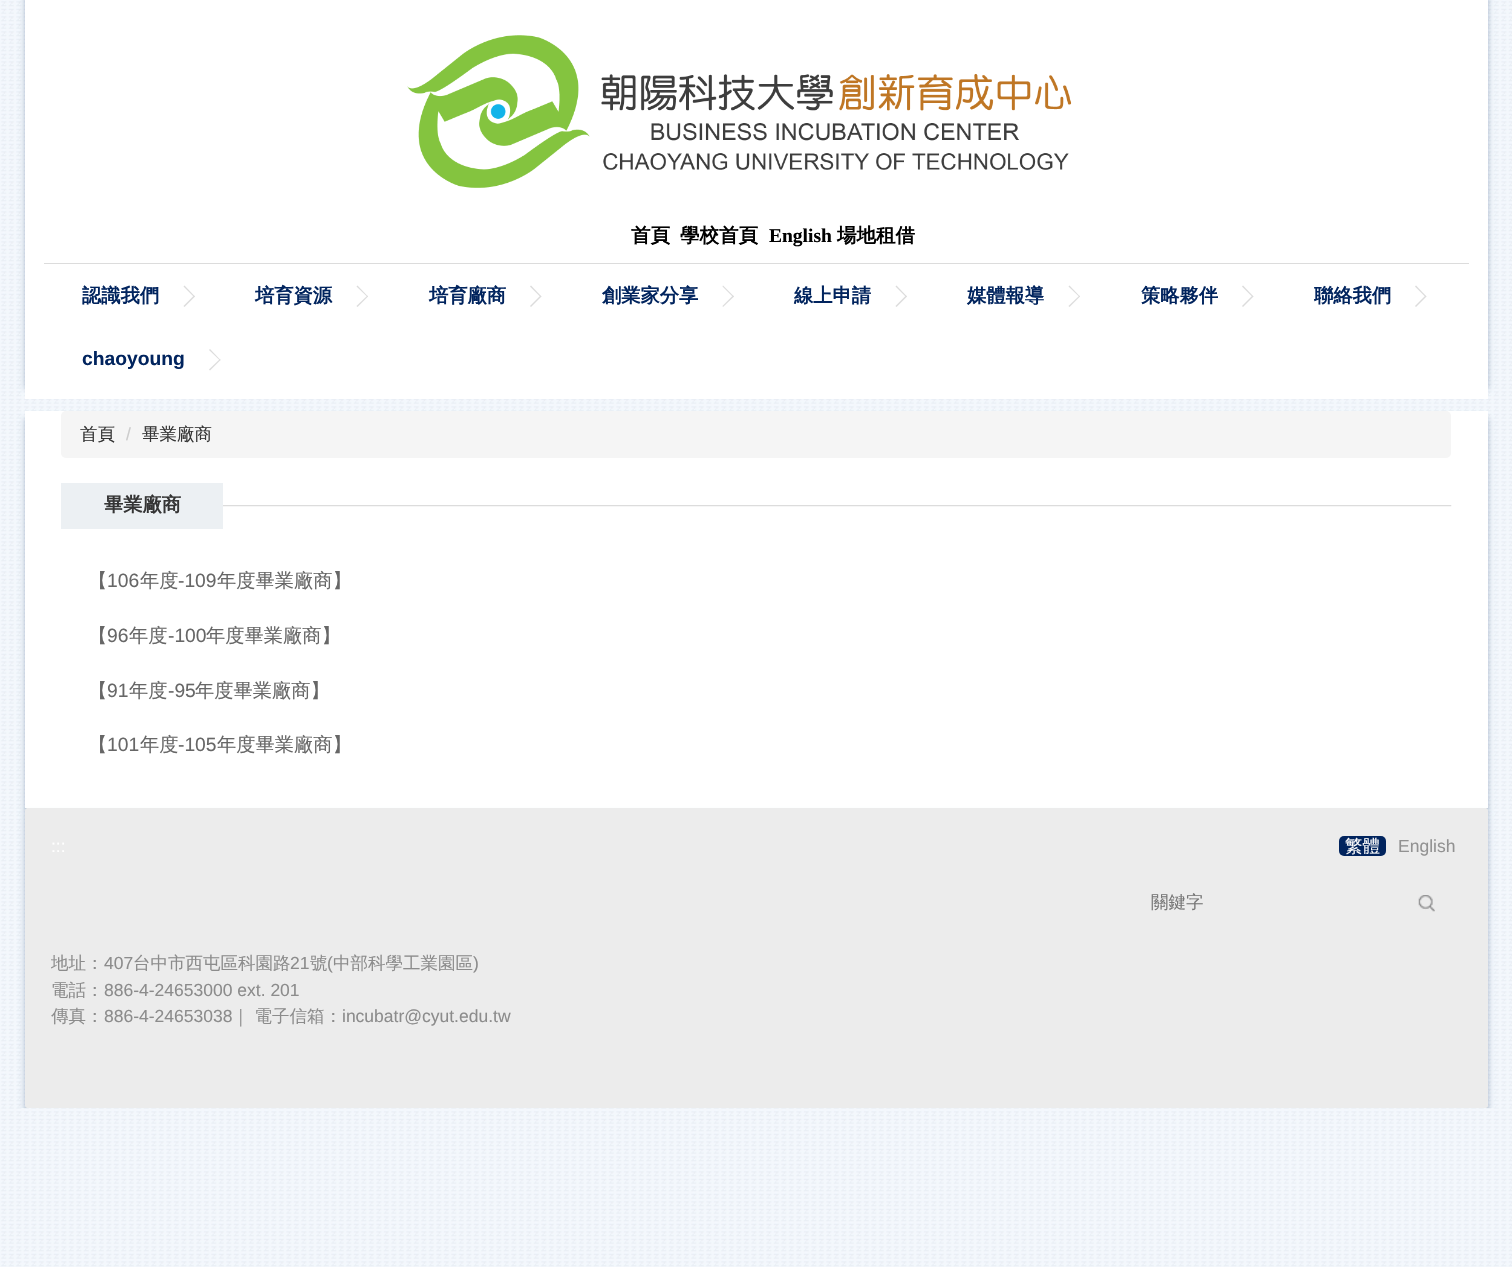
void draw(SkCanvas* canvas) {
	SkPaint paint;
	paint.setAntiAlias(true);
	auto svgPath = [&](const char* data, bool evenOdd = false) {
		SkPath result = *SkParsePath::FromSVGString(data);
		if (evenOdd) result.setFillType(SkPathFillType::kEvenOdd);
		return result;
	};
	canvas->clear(0xffffffff);
	canvas->drawImageRect(SkImages::DeferredFromEncodedData(SkData::MakeFromFileName("img1.png")), SkRect::MakeXYWH(0, 0, 1512, 1267), SkSamplingOptions());
	paint.setColor(0x4d01245e);
	paint.setMaskFilter(SkMaskFilter::MakeBlur(kNormal_SkBlurStyle, 3));
	canvas->drawRect(SkRect::MakeXYWH(25, -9, 1463, 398), paint);
	paint.setMaskFilter(nullptr);
	paint.setColor(0xffffffff);
	canvas->drawRect(SkRect::MakeXYWH(25, 0, 1463, 399), paint);
	canvas->drawImageRect(SkImages::DeferredFromEncodedData(SkData::MakeFromFileName("img2.png")), SkRect::MakeXYWH(407, 35, 665, 153), SkSamplingOptions());
	SkFont f1(fontMgr->matchFamilyStyle("WenQuanYi Zen Hei", SkFontStyle::Bold()), 19.5);
	f1.setSubpixel(true);
	paint.setColor(0xff000000);
	canvas->drawString("首頁", 631, 242, f1, paint);
	canvas->drawString("學校首頁", 680, 242, f1, paint);
	SkFont f2(fontMgr->matchFamilyStyle("Liberation Serif", SkFontStyle::Bold()), 19.5);
	f2.setSubpixel(true);
	canvas->drawString("English", 769, 242, f2, paint);
	canvas->drawString("場地租借", 837, 242, f1, paint);
	paint.setColor(0xffdcdcdc);
	canvas->drawRect(SkRect::MakeXYWH(44, 263, 1425, 1), paint);
	SkFont f3(fontMgr->matchFamilyStyle("WenQuanYi Zen Hei", SkFontStyle::Bold()), 19.25);
	f3.setSubpixel(true);
	paint.setColor(0xff01245e);
	canvas->drawString("認識我們", 82, 302, f3, paint);
	paint.setColor(0xffdcdcdc);
	canvas->drawPath(svgPath("M184.5 285.5L195 296.5L194 297L183.5 286.5Z"), paint);
	canvas->drawPath(svgPath("M194 295.5L195 296.5L184.5 307L183.5 306Z"), paint);
	paint.setColor(0xff01245e);
	canvas->drawString("培育資源", 255, 302, f3, paint);
	paint.setColor(0xffdcdcdc);
	canvas->drawPath(svgPath("M357.5 285.5L368 296.5L367.5 297L356.5 286.5Z"), paint);
	canvas->drawPath(svgPath("M367.5 295.5L368 296.5L357.5 307L356.5 306Z"), paint);
	paint.setColor(0xff01245e);
	canvas->drawString("培育廠商", 429, 302, f3, paint);
	paint.setColor(0xffdcdcdc);
	canvas->drawPath(svgPath("M531 285.5L541.5 296.5L540.5 297L530 286.5Z"), paint);
	canvas->drawPath(svgPath("M540.5 295.5L541.5 296.5L531 307L530 306Z"), paint);
	paint.setColor(0xff01245e);
	canvas->drawString("創業家分享", 602, 302, f3, paint);
	paint.setColor(0xffdcdcdc);
	canvas->drawPath(svgPath("M723 285.5L734 296.5L733 297L722.5 286.5Z"), paint);
	canvas->drawPath(svgPath("M733 295.5L734 296.5L723 307L722.5 306Z"), paint);
	paint.setColor(0xff01245e);
	canvas->drawString("線上申請", 794, 302, f3, paint);
	paint.setColor(0xffdcdcdc);
	canvas->drawPath(svgPath("M896.5 285.5L907 296.5L906 297L895.5 286.5Z"), paint);
	canvas->drawPath(svgPath("M906 295.5L907 296.5L896.5 307L895.5 306Z"), paint);
	paint.setColor(0xff01245e);
	canvas->drawString("媒體報導", 967, 302, f3, paint);
	paint.setColor(0xffdcdcdc);
	canvas->drawPath(svgPath("M1069.5 285.5L1080 296.5L1079.5 297L1068.5 286.5Z"), paint);
	canvas->drawPath(svgPath("M1079.5 295.5L1080 296.5L1069.5 307L1068.5 306Z"), paint);
	paint.setColor(0xff01245e);
	canvas->drawString("策略夥伴", 1141, 302, f3, paint);
	paint.setColor(0xffdcdcdc);
	canvas->drawPath(svgPath("M1243 285.5L1253.5 296.5L1252.5 297L1242 286.5Z"), paint);
	canvas->drawPath(svgPath("M1252.5 295.5L1253.5 296.5L1243 307L1242 306Z"), paint);
	paint.setColor(0xff01245e);
	canvas->drawString("聯絡我們", 1314, 302, f3, paint);
	paint.setColor(0xffdcdcdc);
	canvas->drawPath(svgPath("M1416 285.5L1426.5 296.5L1425.5 297L1415 286.5Z"), paint);
	canvas->drawPath(svgPath("M1425.5 295.5L1426.5 296.5L1416 307L1415 306Z"), paint);
	SkFont f4(fontMgr->matchFamilyStyle("Liberation Sans", SkFontStyle::Bold()), 19.25);
	f4.setSubpixel(true);
	paint.setColor(0xff01245e);
	canvas->drawString("chaoyoung", 82, 365, f4, paint);
	paint.setColor(0xffdcdcdc);
	canvas->drawPath(svgPath("M210 349L220.5 360L220 360.5L209 350Z"), paint);
	canvas->drawPath(svgPath("M220 359L220.5 360L210 370.5L209 369.5Z"), paint);
	paint.setColor(0x4d01245e);
	paint.setMaskFilter(SkMaskFilter::MakeBlur(kNormal_SkBlurStyle, 3));
	canvas->drawRect(SkRect::MakeXYWH(25, 418, 1463, 396), paint);
	paint.setMaskFilter(nullptr);
	paint.setColor(0xffffffff);
	canvas->drawRect(SkRect::MakeXYWH(25, 411, 1463, 397), paint);
	paint.setColor(0xfff5f5f5);
	canvas->drawRoundRect(SkRect::MakeXYWH(61, 411, 1390, 47), 5, 5, paint);
	SkFont f5(fontMgr->matchFamilyStyle("WenQuanYi Zen Hei", SkFontStyle(500, SkFontStyle::kNormal_Width, SkFontStyle::kUpright_Slant)), 17.5);
	f5.setSubpixel(true);
	paint.setColor(0xff353535);
	canvas->drawString("首頁", 80, 440, f5, paint);
	SkFont f6(fontMgr->matchFamilyStyle("Liberation Sans", SkFontStyle::Normal()), 17.5);
	f6.setSubpixel(true);
	paint.setColor(0xffcccccc);
	canvas->drawString("/", 126, 440, f6, paint);
	paint.setColor(0xff353535);
	canvas->drawString("畢業廠商", 142, 440, f5, paint);
	canvas->drawImageRect(SkImages::DeferredFromEncodedData(SkData::MakeFromFileName("img3.png")), SkRect::MakeXYWH(223, 505, 1229, 2), SkSamplingOptions());
	paint.setColor(0xffecf0f3);
	canvas->drawRect(SkRect::MakeXYWH(61, 483, 162, 46), paint);
	paint.setColor(0xff353535);
	canvas->drawString("畢業廠商", 104, 511, f3, paint);
	SkFont f7(fontMgr->matchFamilyStyle("WenQuanYi Zen Hei", SkFontStyle(500, SkFontStyle::kNormal_Width, SkFontStyle::kUpright_Slant)), 19.25);
	f7.setSubpixel(true);
	paint.setColor(0xff676767);
	canvas->drawString("【", 88, 587, f7, paint);
	SkFont f8(fontMgr->matchFamilyStyle("Liberation Sans", SkFontStyle::Normal()), 19.25);
	f8.setSubpixel(true);
	canvas->drawString("106", 107, 587, f8, paint);
	canvas->drawString("年度", 140, 587, f7, paint);
	canvas->drawString("-109", 178, 587, f8, paint);
	canvas->drawString("年度畢業廠商】", 217, 587, f7, paint);
	canvas->drawString("【", 88, 642, f7, paint);
	canvas->drawString("96", 107, 642, f8, paint);
	canvas->drawString("年度", 129, 642, f7, paint);
	canvas->drawString("-100", 168, 642, f8, paint);
	canvas->drawString("年度畢業廠商】", 206, 642, f7, paint);
	canvas->drawString("【", 88, 697, f7, paint);
	canvas->drawString("91", 107, 697, f8, paint);
	canvas->drawString("年度", 129, 697, f7, paint);
	canvas->drawString("-95", 168, 697, f8, paint);
	canvas->drawString("年度畢業廠商】", 195, 697, f7, paint);
	canvas->drawString("【", 88, 751, f7, paint);
	canvas->drawString("101", 107, 751, f8, paint);
	canvas->drawString("年度", 140, 751, f7, paint);
	canvas->drawString("-105", 178, 751, f8, paint);
	canvas->drawString("年度畢業廠商】", 217, 751, f7, paint);
	canvas->save();
	canvas->clipRect(SkRect::MakeXYWH(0, 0, 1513, 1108));
	paint.setColor(0x4d01245e);
	paint.setMaskFilter(SkMaskFilter::MakeBlur(kNormal_SkBlurStyle, 3));
	canvas->drawRoundRect(SkRect::MakeXYWH(25, 814, 1463, 300), 2.5, 2.5, paint);
	paint.setMaskFilter(nullptr);
	canvas->restore();
	paint.setColor(0xffececec);
	canvas->drawRoundRect(SkRect::MakeXYWH(25, 808, 1463, 300), 2.5, 2.5, paint);
	paint.setColor(0xffffffff);
	canvas->drawString(":::", 51, 852, f6, paint);
	paint.setColor(0xff777777);
	canvas->drawString("關鍵字", 1151, 908, f5, paint);
	canvas->drawImageRect(SkImages::DeferredFromEncodedData(SkData::MakeFromFileName("img4.png")), SkRect::MakeXYWH(1418, 895, 17, 17), SkSamplingOptions());
	paint.setColor(0xff8c8c8c);
	canvas->drawString("地址：", 51, 969, f5, paint);
	canvas->drawString("407", 104, 969, f6, paint);
	canvas->drawString("台中市西屯區科園路", 133, 969, f5, paint);
	canvas->drawString("21", 290, 969, f6, paint);
	canvas->drawString("號", 310, 969, f5, paint);
	canvas->drawString("(", 327, 969, f6, paint);
	canvas->drawString("中部科學工業園區", 333, 969, f5, paint);
	canvas->drawString(")", 473, 969, f6, paint);
	canvas->drawString("電話：", 51, 996, f5, paint);
	canvas->drawString("886-4-24653000 ext. 201", 104, 996, f6, paint);
	canvas->drawString("傳真：", 51, 1022, f5, paint);
	canvas->drawString("886-4-24653038", 104, 1022, f6, paint);
	canvas->drawString("｜ 電子信箱：", 232, 1022, f5, paint);
	canvas->drawString("incubatr@cyut.edu.tw", 342, 1022, f6, paint);
	paint.setColor(0xff01245e);
	canvas->drawRoundRect(SkRect::MakeXYWH(1339, 836, 47, 20), 5, 5, paint);
	paint.setColor(0xffffffff);
	canvas->drawString("繁體", 1345, 852, f5, paint);
	paint.setColor(0xff929292);
	canvas->drawString("English", 1398, 852, f6, paint);
}
